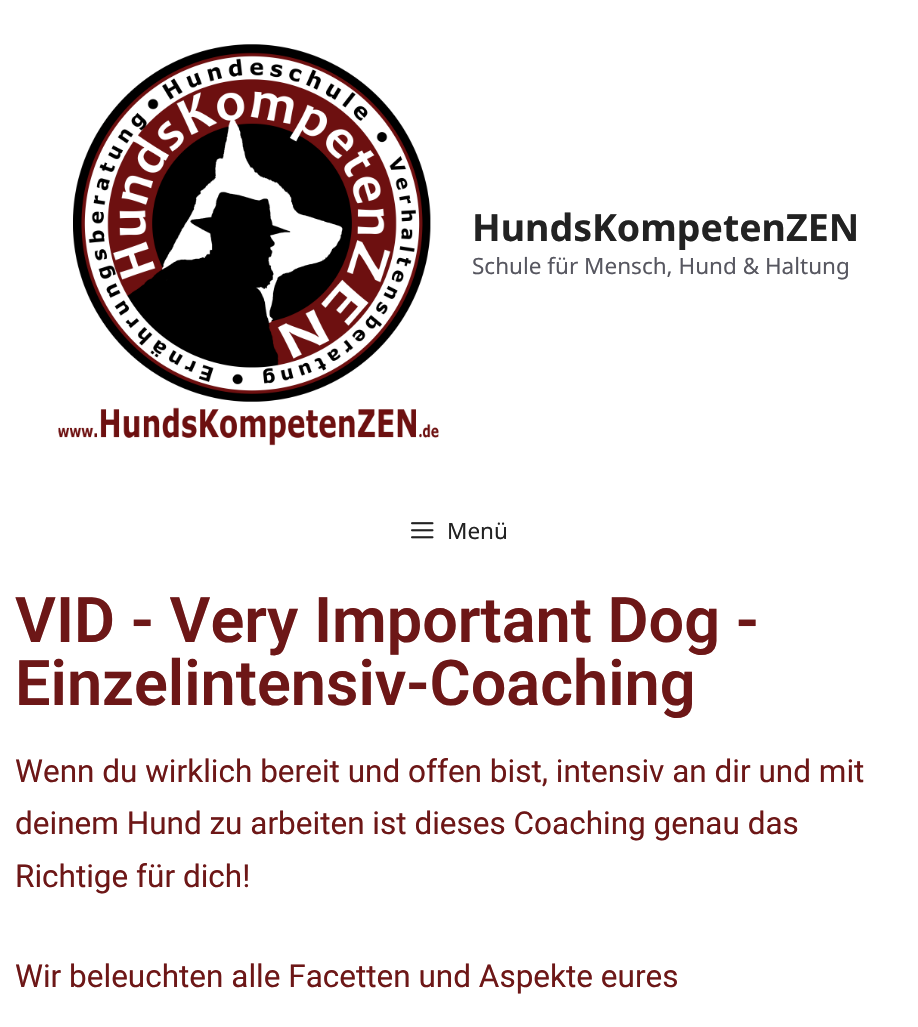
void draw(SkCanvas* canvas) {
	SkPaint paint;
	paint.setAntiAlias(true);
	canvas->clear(0xffffffff);
	canvas->drawImageRect(SkImages::DeferredFromEncodedData(SkData::MakeFromFileName("img1.png")), SkRect::MakeXYWH(58, 44, 381, 402), SkSamplingOptions());
	SkFont f1(fontMgr->matchFamilyStyle("Noto Sans", SkFontStyle::Bold()), 37.5);
	f1.setSubpixel(true);
	paint.setColor(0xff222222);
	canvas->drawString("HundsKompetenZEN", 472, 241, f1, paint);
	SkFont f2(fontMgr->matchFamilyStyle("Noto Sans", SkFontStyle::Normal()), 22.5);
	f2.setSubpixel(true);
	paint.setColor(0xff575760);
	canvas->drawString("Schule für Mensch, Hund & Haltung", 472, 274, f2, paint);
	canvas->drawImageRect(SkImages::DeferredFromEncodedData(SkData::MakeFromFileName("img2.png")), SkRect::MakeXYWH(411, 522, 23, 17), SkSamplingOptions());
	paint.setColor(0xff222222);
	canvas->drawString("Menü", 447, 539, f2, paint);
	SkFont f3(fontMgr->matchFamilyStyle("Roboto", SkFontStyle(600, SkFontStyle::kNormal_Width, SkFontStyle::kUpright_Slant)), 63);
	f3.setSubpixel(true);
	paint.setColor(0xff6d1717);
	canvas->drawString("VID - Very Important Dog -", 15, 642, f3, paint);
	canvas->drawString("Einzelintensiv-Coaching", 15, 705, f3, paint);
	SkFont f4(fontMgr->matchFamilyStyle("Roboto", SkFontStyle::Normal()), 31.5);
	f4.setSubpixel(true);
	canvas->drawString("Wenn du wirklich bereit und offen bist, intensiv an dir und mit", 15, 782, f4, paint);
	canvas->drawString("deinem Hund zu arbeiten ist dieses Coaching genau das", 15, 834, f4, paint);
	canvas->drawString("Richtige für dich!", 15, 887, f4, paint);
	canvas->drawString("Wir beleuchten alle Facetten und Aspekte eures", 15, 987, f4, paint);
}
